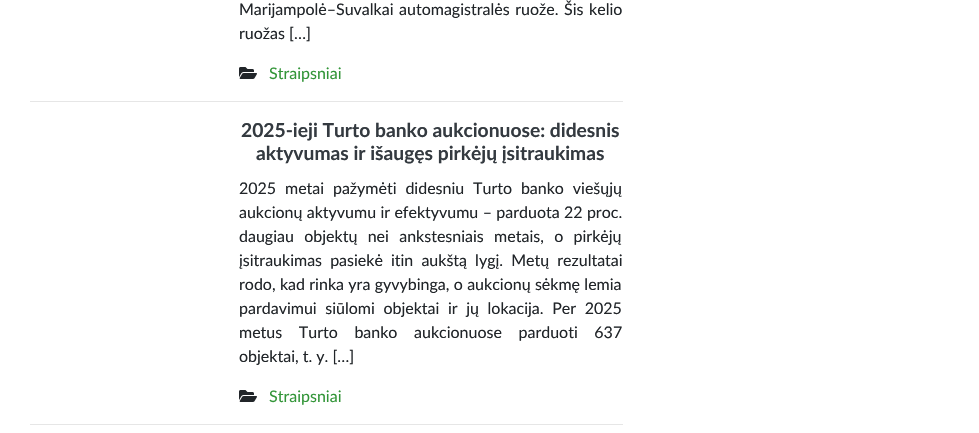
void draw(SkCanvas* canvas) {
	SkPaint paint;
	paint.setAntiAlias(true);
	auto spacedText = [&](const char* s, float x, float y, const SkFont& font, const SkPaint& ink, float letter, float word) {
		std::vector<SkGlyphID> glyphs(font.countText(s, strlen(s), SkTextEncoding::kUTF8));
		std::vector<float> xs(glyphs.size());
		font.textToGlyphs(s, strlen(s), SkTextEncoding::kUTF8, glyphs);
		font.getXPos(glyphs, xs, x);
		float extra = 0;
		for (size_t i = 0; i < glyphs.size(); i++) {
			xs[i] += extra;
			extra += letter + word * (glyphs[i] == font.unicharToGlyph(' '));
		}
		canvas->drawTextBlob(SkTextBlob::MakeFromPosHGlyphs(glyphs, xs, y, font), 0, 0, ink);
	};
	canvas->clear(0xffffffff);
	SkFont f1(fontMgr->matchFamilyStyle("Lato", SkFontStyle::Normal()), 16);
	f1.setSubpixel(true);
	paint.setColor(0xff212529);
	spacedText("Marijampolė–Suvalkai automagistralės ruože. Šis kelio", 239, 15, f1, paint, 0, 1.5);
	canvas->drawString("ruožas […]", 239, 39, f1, paint);
	canvas->drawImageRect(SkImages::DeferredFromEncodedData(SkData::MakeFromFileName("img1.png")), SkRect::MakeXYWH(239, 67, 18, 12), SkSamplingOptions());
	paint.setColor(0xff329538);
	canvas->drawString("Straipsniai", 269, 79, f1, paint);
	paint.setColor(0xffe6e6e6);
	canvas->drawRect(SkRect::MakeXYWH(30, 101, 593, 1), paint);
	SkFont f2(fontMgr->matchFamilyStyle("Lato", SkFontStyle::Bold()), 19.25);
	f2.setSubpixel(true);
	paint.setColor(0xff343a40);
	canvas->drawString("2025-ieji Turto banko aukcionuose: didesnis", 241, 137, f2, paint);
	canvas->drawString("aktyvumas ir išaugęs pirkėjų įsitraukimas", 256, 160, f2, paint);
	paint.setColor(0xff212529);
	spacedText("2025 metai pažymėti didesniu Turto banko viešųjų", 239, 194, f1, paint, 0, 4.75);
	spacedText("aukcionų aktyvumu ir efektyvumu – parduota 22 proc.", 239, 218, f1, paint, 0, 0.25);
	spacedText("daugiau objektų nei ankstesniais metais, o pirkėjų", 239, 242, f1, paint, 0, 6.25);
	spacedText("įsitraukimas pasiekė itin aukštą lygį. Metų rezultatai", 239, 266, f1, paint, 0, 4);
	spacedText("rodo, kad rinka yra gyvybinga, o aukcionų sėkmę lemia", 239, 290, f1, paint, 0, 0.25);
	spacedText("pardavimui siūlomi objektai ir jų lokacija. Per 2025", 239, 314, f1, paint, 0, 4.5);
	spacedText("metus Turto banko aukcionuose parduoti 637", 239, 338, f1, paint, 0, 12.5);
	canvas->drawString("objektai, t. y. […]", 239, 362, f1, paint);
	canvas->drawImageRect(SkImages::DeferredFromEncodedData(SkData::MakeFromFileName("img1.png")), SkRect::MakeXYWH(239, 390, 18, 12), SkSamplingOptions());
	paint.setColor(0xff329538);
	canvas->drawString("Straipsniai", 269, 402, f1, paint);
	paint.setColor(0xffe6e6e6);
	canvas->drawRect(SkRect::MakeXYWH(30, 424, 593, 1), paint);
}
